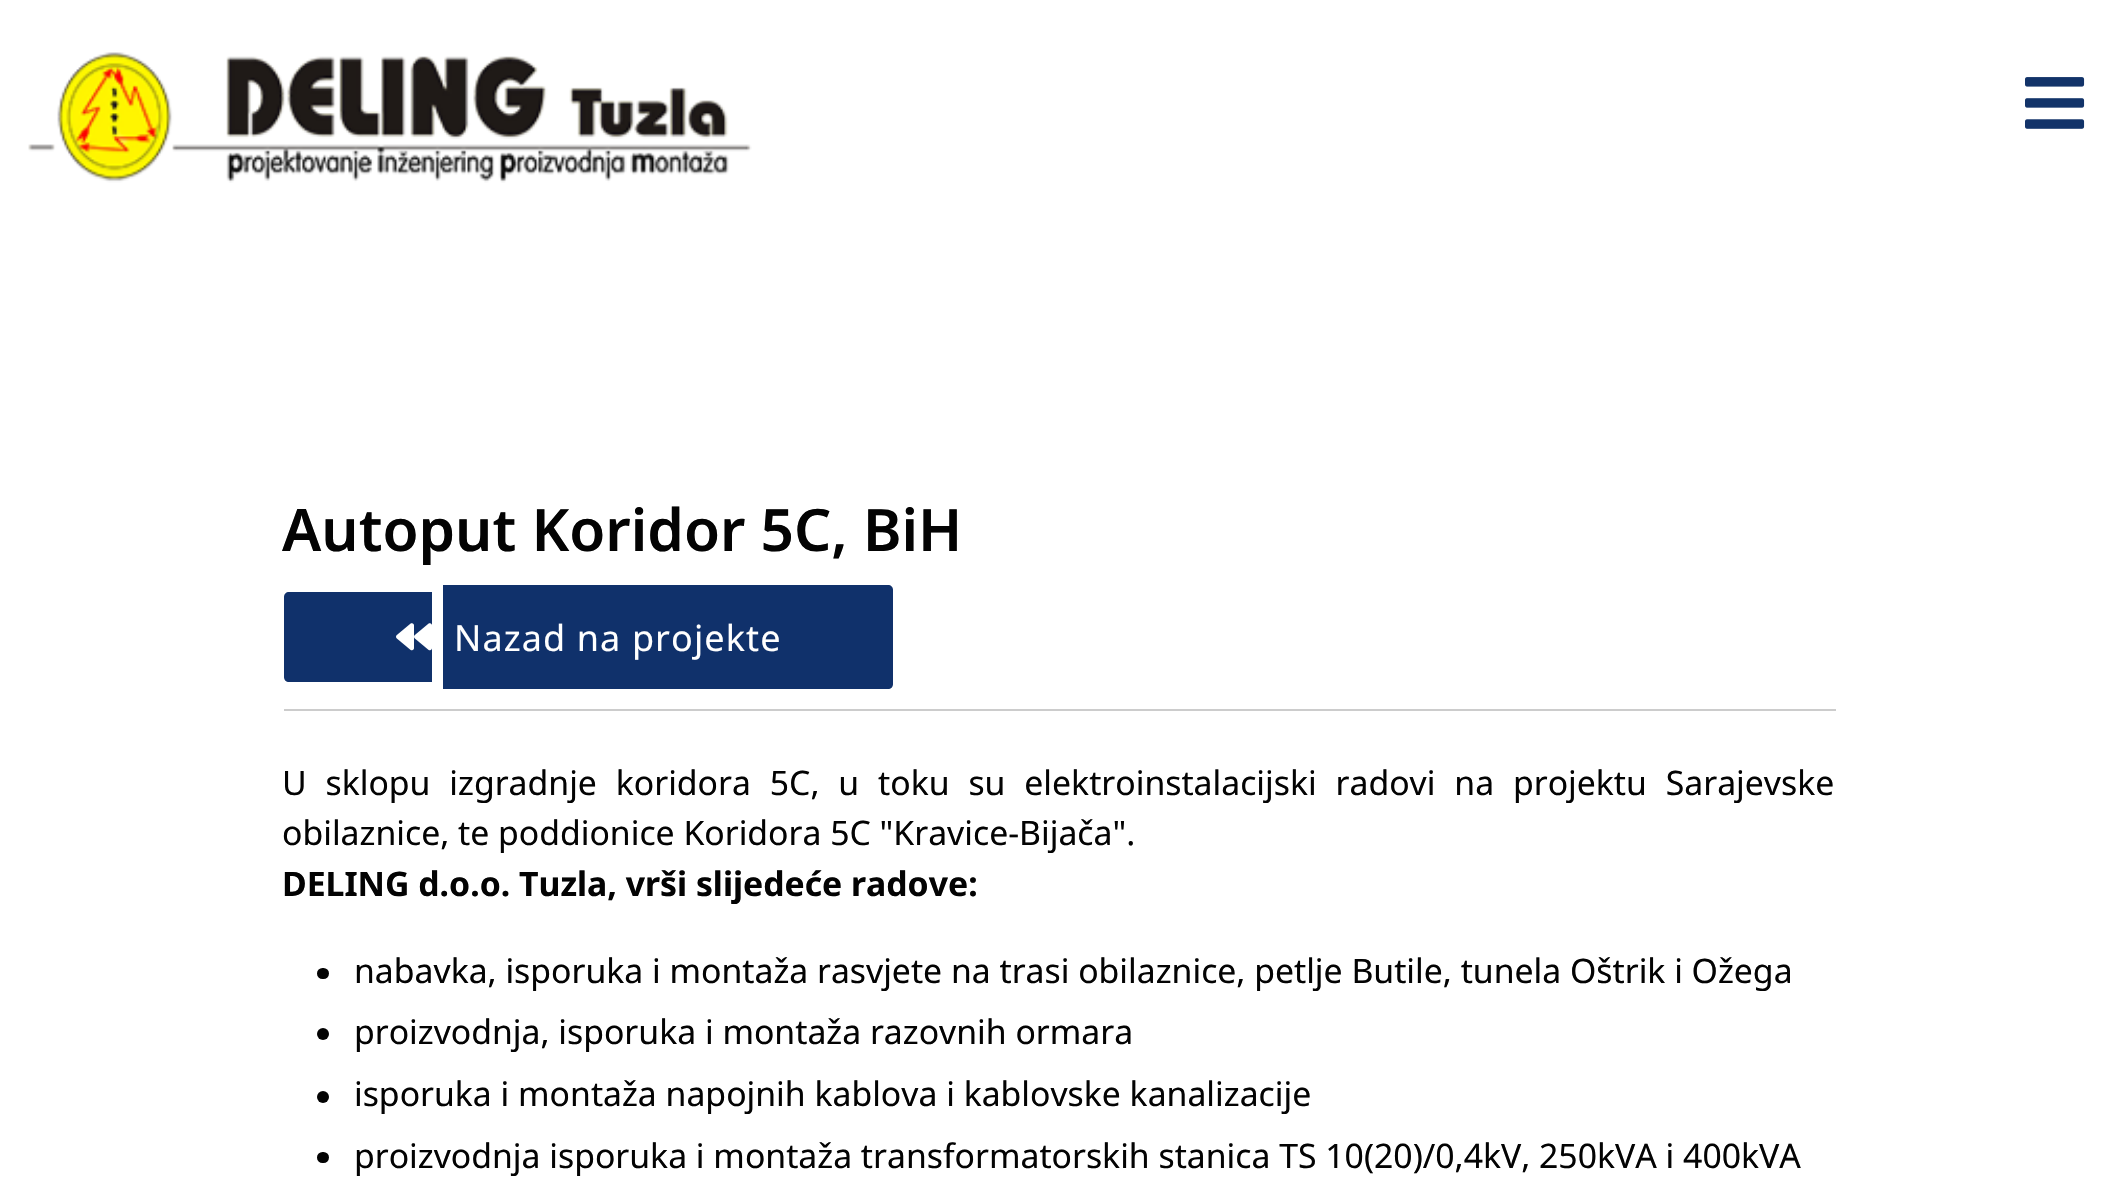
void draw(SkCanvas* canvas) {
	SkPaint paint;
	paint.setAntiAlias(true);
	auto spacedText = [&](const char* s, float x, float y, const SkFont& font, const SkPaint& ink, float letter, float word) {
		std::vector<SkGlyphID> glyphs(font.countText(s, strlen(s), SkTextEncoding::kUTF8));
		std::vector<float> xs(glyphs.size());
		font.textToGlyphs(s, strlen(s), SkTextEncoding::kUTF8, glyphs);
		font.getXPos(glyphs, xs, x);
		float extra = 0;
		for (size_t i = 0; i < glyphs.size(); i++) {
			xs[i] += extra;
			extra += letter + word * (glyphs[i] == font.unicharToGlyph(' '));
		}
		canvas->drawTextBlob(SkTextBlob::MakeFromPosHGlyphs(glyphs, xs, y, font), 0, 0, ink);
	};
	auto svgPath = [&](const char* data, bool evenOdd = false) {
		SkPath result = *SkParsePath::FromSVGString(data);
		if (evenOdd) result.setFillType(SkPathFillType::kEvenOdd);
		return result;
	};
	canvas->clear(0xffffffff);
	canvas->drawImageRect(SkImages::DeferredFromEncodedData(SkData::MakeFromFileName("img1.png")), SkRect::MakeXYWH(28, 52, 724, 131), SkSamplingOptions());
	canvas->drawImageRect(SkImages::DeferredFromEncodedData(SkData::MakeFromFileName("img2.png")), SkRect::MakeXYWH(2025, 77, 60, 52), SkSamplingOptions());
	SkFont f1(fontMgr->matchFamilyStyle("Noto Sans", SkFontStyle(600, SkFontStyle::kNormal_Width, SkFontStyle::kUpright_Slant)), 58.5);
	f1.setSubpixel(true);
	paint.setColor(0xff030303);
	canvas->drawString("Autoput Koridor 5C, BiH", 282, 551, f1, paint);
	paint.setColor(0xff10316b);
	canvas->drawPath(svgPath("M289 592H432V682H289C286 682 284 680 284 677V597C284 594 286 592 289 592Z"), paint);
	canvas->drawPath(svgPath("M443 585H888C891 585 893 587 893 590V684C893 687 891 689 888 689H443Z"), paint);
	canvas->drawImageRect(SkImages::DeferredFromEncodedData(SkData::MakeFromFileName("img3.png")), SkRect::MakeXYWH(396, 623, 36, 28), SkSamplingOptions());
	SkFont f2(fontMgr->matchFamilyStyle("Noto Sans", SkFontStyle::Normal()), 36);
	f2.setSubpixel(true);
	paint.setColor(0xffffffff);
	spacedText("Nazad na projekte", 454, 651, f2, paint, 1.1, 0);
	paint.setColor(0xffcccccc);
	canvas->drawRect(SkRect::MakeXYWH(284, 709, 1552, 2), paint);
	SkFont f3(fontMgr->matchFamilyStyle("Noto Sans", SkFontStyle::Normal()), 33.75);
	f3.setSubpixel(true);
	paint.setColor(0xff030303);
	spacedText("U sklopu izgradnje koridora 5C, u toku su elektroinstalacijski radovi na projektu Sarajevske", 282, 795, f3, paint, 0, 10.1);
	canvas->drawString("obilaznice, te poddionice Koridora 5C \"Kravice-Bijača\".", 282, 845, f3, paint);
	SkFont f4(fontMgr->matchFamilyStyle("Noto Sans", SkFontStyle::Bold()), 33.75);
	f4.setSubpixel(true);
	canvas->drawString("DELING d.o.o. Tuzla, vrši slijedeće radove:", 282, 896, f4, paint);
	canvas->drawRoundRect(SkRect::MakeXYWH(317, 968, 12, 11), 5.5, 5.5, paint);
	canvas->drawString("nabavka, isporuka i montaža rasvjete na trasi obilaznice, petlje Butile, tunela Oštrik i Ožega", 354, 983, f3, paint);
	canvas->drawCircle(323, 1034, 6, paint);
	canvas->drawString("proizvodnja, isporuka i montaža razovnih ormara", 354, 1044, f3, paint);
	canvas->drawCircle(323, 1097, 6, paint);
	canvas->drawString("isporuka i montaža napojnih kablova i kablovske kanalizacije", 354, 1106, f3, paint);
	canvas->drawRoundRect(SkRect::MakeXYWH(317, 1152, 12, 11), 5.5, 5.5, paint);
	canvas->drawString("proizvodnja isporuka i montaža transformatorskih stanica TS 10(20)/0,4kV, 250kVA i 400kVA", 354, 1168, f3, paint);
}
